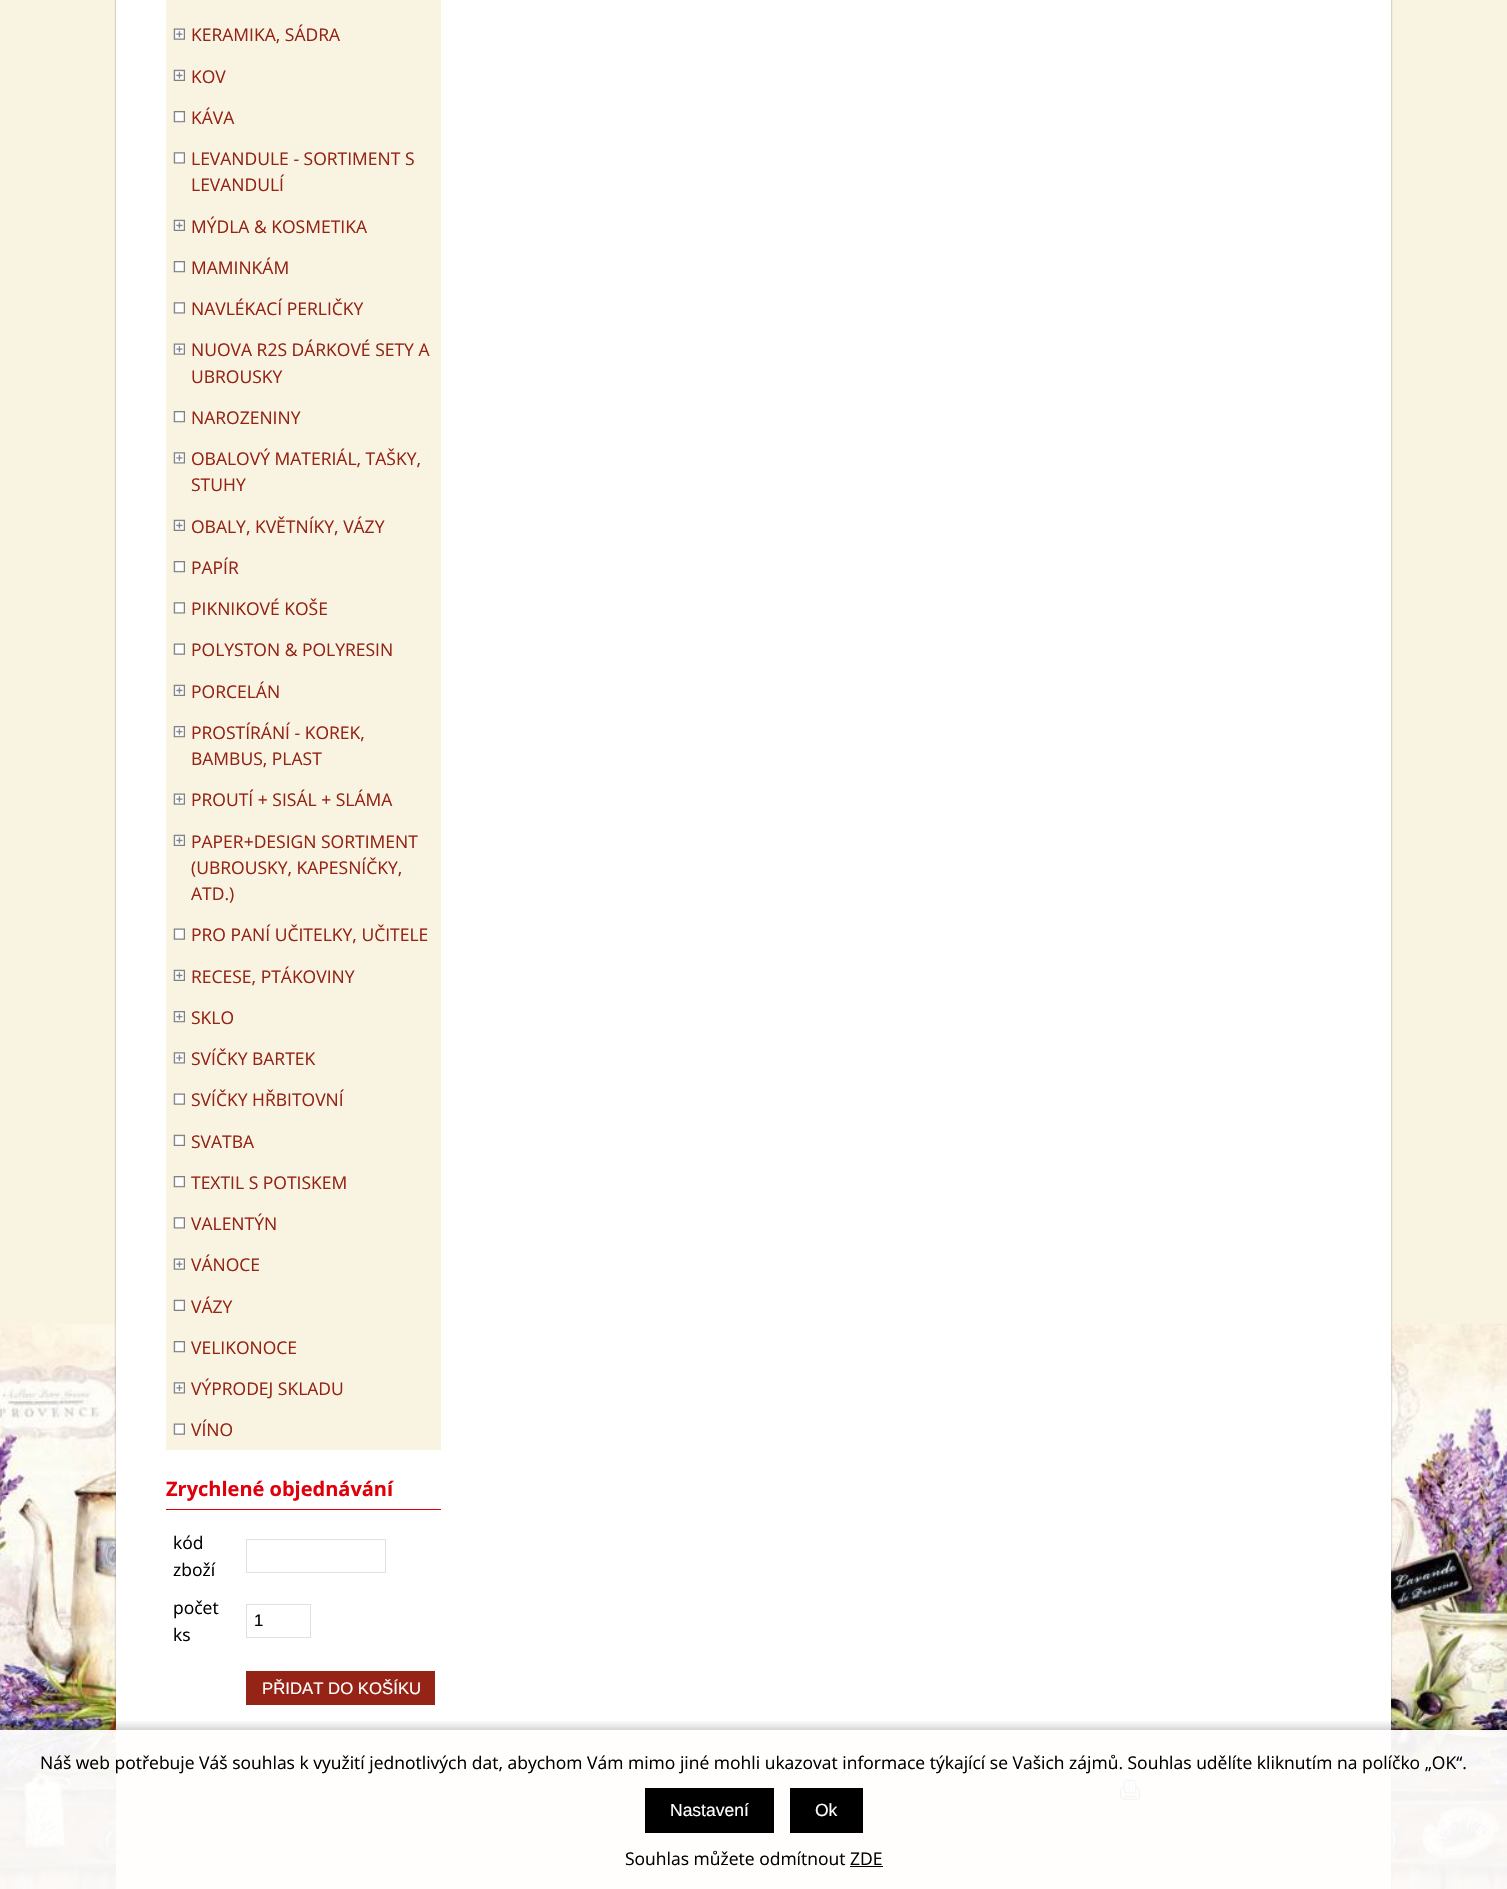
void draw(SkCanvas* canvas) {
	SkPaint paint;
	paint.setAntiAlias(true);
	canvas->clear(0xfff9f4e1);
	canvas->drawImageRect(SkImages::DeferredFromEncodedData(SkData::MakeFromFileName("img1.png")), SkRect::MakeXYWH(0, 1323, 1507, 566), SkSamplingOptions());
	paint.setColor(0x80323232);
	paint.setMaskFilter(SkMaskFilter::MakeBlur(kNormal_SkBlurStyle, 1));
	canvas->drawRect(SkRect::MakeXYWH(116, -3, 1275, 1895), paint);
	paint.setMaskFilter(nullptr);
	paint.setColor(0xffffffff);
	canvas->drawRect(SkRect::MakeXYWH(116, 0, 1275, 1736), paint);
	paint.setColor(0xfff9f4e1);
	canvas->drawRect(SkRect::MakeXYWH(166, 0, 275, 1450), paint);
	canvas->drawImageRect(SkImages::DeferredFromEncodedData(SkData::MakeFromFileName("img2.png")), SkRect::MakeXYWH(173, 28, 12, 12), SkSamplingOptions());
	SkFont f1(fontMgr->matchFamilyStyle("Open Sans", SkFontStyle::Normal()), 17.5);
	f1.setSubpixel(true);
	paint.setColor(0xff952416);
	canvas->drawString("KERAMIKA, SÁDRA", 191, 41, f1, paint);
	canvas->drawImageRect(SkImages::DeferredFromEncodedData(SkData::MakeFromFileName("img3.png")), SkRect::MakeXYWH(173, 69, 12, 12), SkSamplingOptions());
	canvas->drawString("KOV", 191, 83, f1, paint);
	canvas->drawImageRect(SkImages::DeferredFromEncodedData(SkData::MakeFromFileName("img4.png")), SkRect::MakeXYWH(173, 111, 12, 12), SkSamplingOptions());
	canvas->drawString("KÁVA", 191, 124, f1, paint);
	canvas->drawImageRect(SkImages::DeferredFromEncodedData(SkData::MakeFromFileName("img5.png")), SkRect::MakeXYWH(173, 152, 12, 12), SkSamplingOptions());
	canvas->drawString("LEVANDULE - SORTIMENT S", 191, 165, f1, paint);
	canvas->drawString("LEVANDULÍ", 191, 191, f1, paint);
	canvas->drawImageRect(SkImages::DeferredFromEncodedData(SkData::MakeFromFileName("img3.png")), SkRect::MakeXYWH(173, 219, 12, 12), SkSamplingOptions());
	canvas->drawString("MÝDLA & KOSMETIKA", 191, 233, f1, paint);
	canvas->drawImageRect(SkImages::DeferredFromEncodedData(SkData::MakeFromFileName("img4.png")), SkRect::MakeXYWH(173, 261, 12, 12), SkSamplingOptions());
	canvas->drawString("MAMINKÁM", 191, 274, f1, paint);
	canvas->drawImageRect(SkImages::DeferredFromEncodedData(SkData::MakeFromFileName("img5.png")), SkRect::MakeXYWH(173, 302, 12, 12), SkSamplingOptions());
	canvas->drawString("NAVLÉKACÍ PERLIČKY", 191, 315, f1, paint);
	canvas->drawImageRect(SkImages::DeferredFromEncodedData(SkData::MakeFromFileName("img2.png")), SkRect::MakeXYWH(173, 343, 12, 12), SkSamplingOptions());
	canvas->drawString("NUOVA R2S DÁRKOVÉ SETY A", 191, 356, f1, paint);
	canvas->drawString("UBROUSKY", 191, 383, f1, paint);
	canvas->drawImageRect(SkImages::DeferredFromEncodedData(SkData::MakeFromFileName("img4.png")), SkRect::MakeXYWH(173, 411, 12, 12), SkSamplingOptions());
	canvas->drawString("NAROZENINY", 191, 424, f1, paint);
	canvas->drawImageRect(SkImages::DeferredFromEncodedData(SkData::MakeFromFileName("img6.png")), SkRect::MakeXYWH(173, 452, 12, 12), SkSamplingOptions());
	canvas->drawString("OBALOVÝ MATERIÁL, TAŠKY,", 191, 465, f1, paint);
	canvas->drawString("STUHY", 191, 491, f1, paint);
	canvas->drawImageRect(SkImages::DeferredFromEncodedData(SkData::MakeFromFileName("img3.png")), SkRect::MakeXYWH(173, 519, 12, 12), SkSamplingOptions());
	canvas->drawString("OBALY, KVĚTNÍKY, VÁZY", 191, 533, f1, paint);
	canvas->drawImageRect(SkImages::DeferredFromEncodedData(SkData::MakeFromFileName("img4.png")), SkRect::MakeXYWH(173, 561, 12, 12), SkSamplingOptions());
	canvas->drawString("PAPÍR", 191, 574, f1, paint);
	canvas->drawImageRect(SkImages::DeferredFromEncodedData(SkData::MakeFromFileName("img5.png")), SkRect::MakeXYWH(173, 602, 12, 12), SkSamplingOptions());
	canvas->drawString("PIKNIKOVÉ KOŠE", 191, 615, f1, paint);
	canvas->drawImageRect(SkImages::DeferredFromEncodedData(SkData::MakeFromFileName("img7.png")), SkRect::MakeXYWH(173, 643, 12, 12), SkSamplingOptions());
	canvas->drawString("POLYSTON & POLYRESIN", 191, 656, f1, paint);
	canvas->drawImageRect(SkImages::DeferredFromEncodedData(SkData::MakeFromFileName("img3.png")), SkRect::MakeXYWH(173, 684, 12, 12), SkSamplingOptions());
	canvas->drawString("PORCELÁN", 191, 698, f1, paint);
	canvas->drawImageRect(SkImages::DeferredFromEncodedData(SkData::MakeFromFileName("img8.png")), SkRect::MakeXYWH(173, 726, 12, 12), SkSamplingOptions());
	canvas->drawString("PROSTÍRÁNÍ - KOREK,", 191, 739, f1, paint);
	canvas->drawString("BAMBUS, PLAST", 191, 765, f1, paint);
	canvas->drawImageRect(SkImages::DeferredFromEncodedData(SkData::MakeFromFileName("img2.png")), SkRect::MakeXYWH(173, 793, 12, 12), SkSamplingOptions());
	canvas->drawString("PROUTÍ + SISÁL + SLÁMA", 191, 806, f1, paint);
	canvas->drawImageRect(SkImages::DeferredFromEncodedData(SkData::MakeFromFileName("img3.png")), SkRect::MakeXYWH(173, 834, 12, 12), SkSamplingOptions());
	canvas->drawString("PAPER+DESIGN SORTIMENT", 191, 848, f1, paint);
	canvas->drawString("(UBROUSKY, KAPESNÍČKY,", 191, 874, f1, paint);
	canvas->drawString("ATD.)", 191, 900, f1, paint);
	canvas->drawImageRect(SkImages::DeferredFromEncodedData(SkData::MakeFromFileName("img7.png")), SkRect::MakeXYWH(173, 928, 12, 12), SkSamplingOptions());
	canvas->drawString("PRO PANÍ UČITELKY, UČITELE", 191, 941, f1, paint);
	canvas->drawImageRect(SkImages::DeferredFromEncodedData(SkData::MakeFromFileName("img3.png")), SkRect::MakeXYWH(173, 969, 12, 12), SkSamplingOptions());
	canvas->drawString("RECESE, PTÁKOVINY", 191, 983, f1, paint);
	canvas->drawImageRect(SkImages::DeferredFromEncodedData(SkData::MakeFromFileName("img8.png")), SkRect::MakeXYWH(173, 1011, 12, 12), SkSamplingOptions());
	canvas->drawString("SKLO", 191, 1024, f1, paint);
	canvas->drawImageRect(SkImages::DeferredFromEncodedData(SkData::MakeFromFileName("img6.png")), SkRect::MakeXYWH(173, 1052, 12, 12), SkSamplingOptions());
	canvas->drawString("SVÍČKY BARTEK", 191, 1065, f1, paint);
	canvas->drawImageRect(SkImages::DeferredFromEncodedData(SkData::MakeFromFileName("img7.png")), SkRect::MakeXYWH(173, 1093, 12, 12), SkSamplingOptions());
	canvas->drawString("SVÍČKY HŘBITOVNÍ", 191, 1106, f1, paint);
	canvas->drawImageRect(SkImages::DeferredFromEncodedData(SkData::MakeFromFileName("img9.png")), SkRect::MakeXYWH(173, 1134, 12, 12), SkSamplingOptions());
	canvas->drawString("SVATBA", 191, 1148, f1, paint);
	canvas->drawImageRect(SkImages::DeferredFromEncodedData(SkData::MakeFromFileName("img4.png")), SkRect::MakeXYWH(173, 1176, 12, 12), SkSamplingOptions());
	canvas->drawString("TEXTIL S POTISKEM", 191, 1189, f1, paint);
	canvas->drawImageRect(SkImages::DeferredFromEncodedData(SkData::MakeFromFileName("img5.png")), SkRect::MakeXYWH(173, 1217, 12, 12), SkSamplingOptions());
	canvas->drawString("VALENTÝN", 191, 1230, f1, paint);
	canvas->drawImageRect(SkImages::DeferredFromEncodedData(SkData::MakeFromFileName("img10.png")), SkRect::MakeXYWH(173, 1258, 12, 12), SkSamplingOptions());
	canvas->drawString("VÁNOCE", 191, 1271, f1, paint);
	canvas->drawImageRect(SkImages::DeferredFromEncodedData(SkData::MakeFromFileName("img9.png")), SkRect::MakeXYWH(173, 1299, 12, 12), SkSamplingOptions());
	canvas->drawString("VÁZY", 191, 1313, f1, paint);
	canvas->drawImageRect(SkImages::DeferredFromEncodedData(SkData::MakeFromFileName("img4.png")), SkRect::MakeXYWH(173, 1341, 12, 12), SkSamplingOptions());
	canvas->drawString("VELIKONOCE", 191, 1354, f1, paint);
	canvas->drawImageRect(SkImages::DeferredFromEncodedData(SkData::MakeFromFileName("img6.png")), SkRect::MakeXYWH(173, 1382, 12, 12), SkSamplingOptions());
	canvas->drawString("VÝPRODEJ SKLADU", 191, 1395, f1, paint);
	canvas->drawImageRect(SkImages::DeferredFromEncodedData(SkData::MakeFromFileName("img7.png")), SkRect::MakeXYWH(173, 1423, 12, 12), SkSamplingOptions());
	canvas->drawString("VÍNO", 191, 1436, f1, paint);
	paint.setColor(0xffdf000a);
	canvas->drawRect(SkRect::MakeXYWH(166, 1509, 275, 1), paint);
	SkFont f2(fontMgr->matchFamilyStyle("Open Sans", SkFontStyle::Bold()), 20);
	f2.setSubpixel(true);
	canvas->drawString("Zrychlené objednávání", 166, 1496, f2, paint);
	paint.setColor(0xff000000);
	canvas->drawString("kód", 173, 1549, f1, paint);
	canvas->drawString("zboží", 173, 1576, f1, paint);
	paint.setStroke(true);
	paint.setStrokeWidth(1);
	paint.setColor(0xffe0e0e0);
	canvas->drawRect(SkRect::MakeXYWH(246.5, 1539.5, 139, 33), paint);
	paint.setStroke(false);
	paint.setColor(0xff000000);
	canvas->drawString("počet", 173, 1614, f1, paint);
	canvas->drawString("ks", 173, 1641, f1, paint);
	paint.setStroke(true);
	paint.setColor(0xffe0e0e0);
	canvas->drawRect(SkRect::MakeXYWH(246.5, 1604.5, 64, 33), paint);
	SkFont f3(fontMgr->matchFamilyStyle("Liberation Sans", SkFontStyle::Normal()), 16.75);
	f3.setSubpixel(true);
	paint.setStroke(false);
	paint.setColor(0xff000000);
	canvas->drawString("1", 254, 1626, f3, paint);
	paint.setColor(0xff952416);
	canvas->drawRect(SkRect::MakeXYWH(246, 1671, 189, 34), paint);
	paint.setColor(0xffffffff);
	canvas->drawString("PŘIDAT DO KOŠÍKU", 262, 1694, f3, paint);
	paint.setColor(0xfff9eedc);
	canvas->drawRect(SkRect::MakeXYWH(116, 1736, 1275, 153), paint);
	canvas->drawImageRect(SkImages::DeferredFromEncodedData(SkData::MakeFromFileName("img11.png")), SkRect::MakeXYWH(1120, 1779, 20, 21), SkSamplingOptions());
	canvas->save();
	canvas->clipRect(SkRect::MakeXYWH(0, 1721, 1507, 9));
	paint.setColor(0x40000000);
	paint.setMaskFilter(SkMaskFilter::MakeBlur(kNormal_SkBlurStyle, 5));
	canvas->drawRect(SkRect::MakeXYWH(0, 1728, 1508, 160), paint);
	paint.setMaskFilter(nullptr);
	canvas->restore();
	paint.setColor(0xf0ffffff);
	canvas->drawRect(SkRect::MakeXYWH(0, 1730, 1507, 159), paint);
	paint.setColor(0xff000000);
	canvas->drawString("Náš web potřebuje Váš souhlas k využití jednotlivých dat, abychom Vám mimo jiné mohli ukazovat informace týkající se Vašich zájmů. Souhlas udělíte kliknutím na políčko „OK“.", 40, 1769, f1, paint);
	canvas->drawRect(SkRect::MakeXYWH(645, 1788, 129, 45), paint);
	SkFont f4(fontMgr->matchFamilyStyle("Liberation Sans", SkFontStyle::Normal()), 17.5);
	f4.setSubpixel(true);
	paint.setColor(0xffffffff);
	canvas->drawString("Nastavení", 670, 1816, f4, paint);
	paint.setColor(0xff000000);
	canvas->drawRect(SkRect::MakeXYWH(790, 1788, 73, 45), paint);
	paint.setColor(0xffffffff);
	canvas->drawString("Ok", 815, 1816, f4, paint);
	paint.setColor(0xff000000);
	canvas->drawString("Souhlas můžete odmítnout ZDE", 625, 1865, f1, paint);
	canvas->drawRect(SkRect::MakeXYWH(850, 1866, 33, 1), paint);
}
